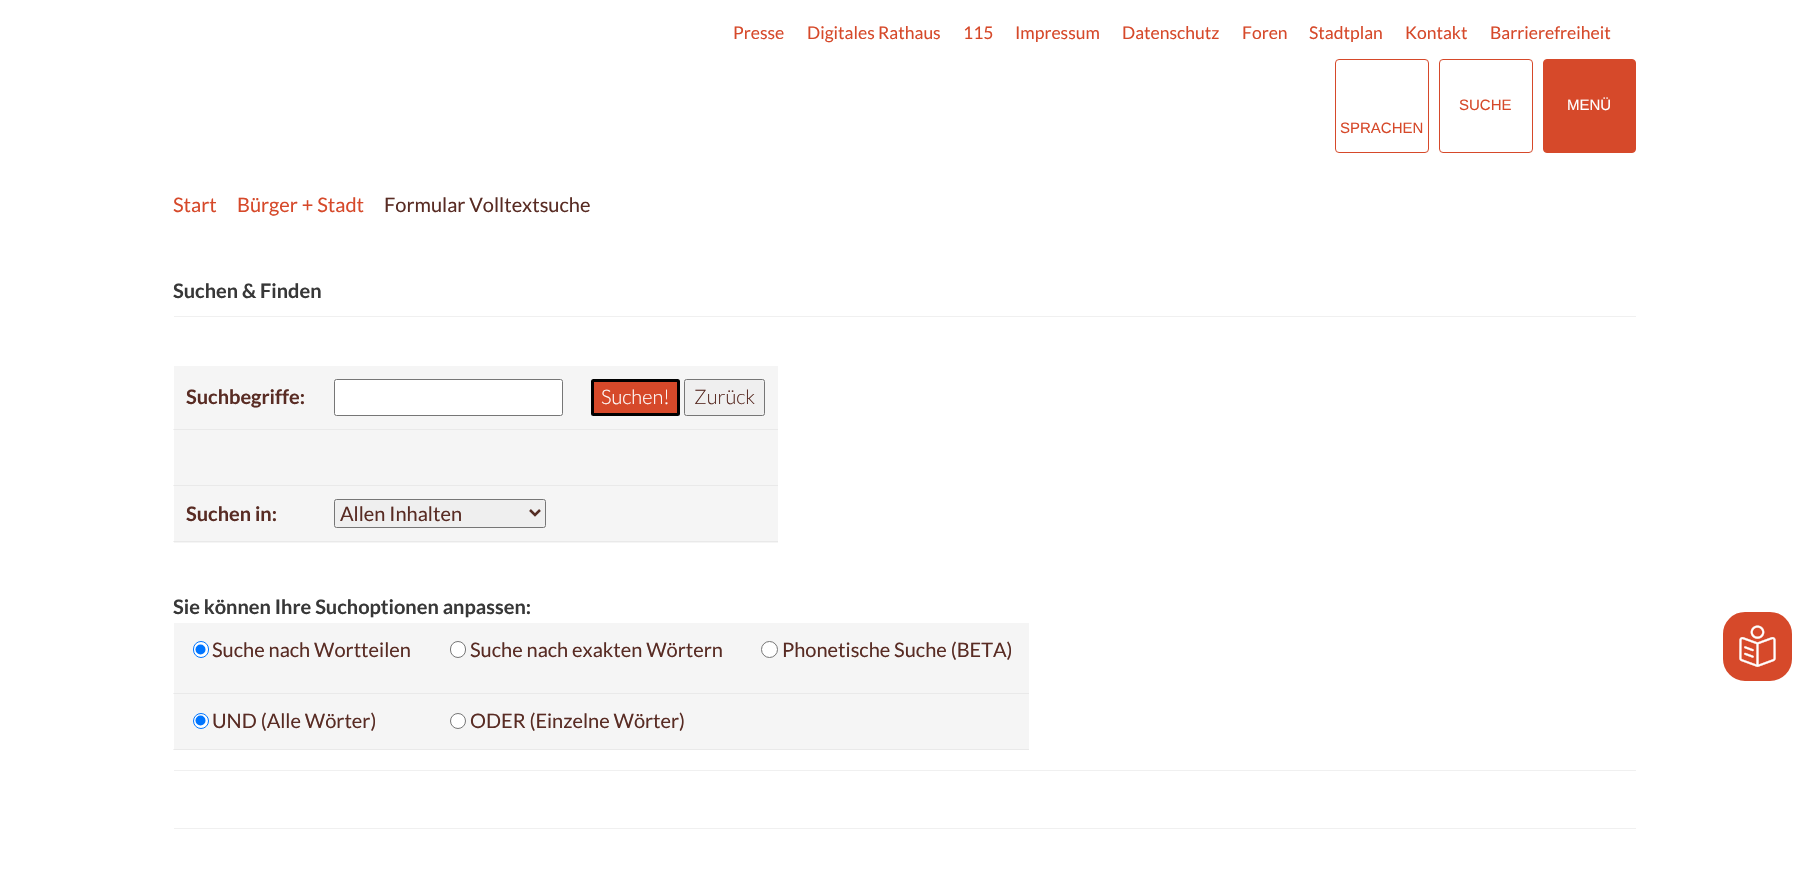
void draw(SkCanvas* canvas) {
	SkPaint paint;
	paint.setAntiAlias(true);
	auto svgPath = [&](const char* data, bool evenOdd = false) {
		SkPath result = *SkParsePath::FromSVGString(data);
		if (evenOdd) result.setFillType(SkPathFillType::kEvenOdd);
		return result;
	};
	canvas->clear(0xffffffff);
	paint.setColor(0xfff2f2f2);
	canvas->drawRect(SkRect::MakeXYWH(173, 693, 1, 1), paint);
	canvas->drawRect(SkRect::MakeXYWH(173, 749, 1, 1), paint);
	canvas->drawRect(SkRect::MakeXYWH(173, 429, 1, 1), paint);
	canvas->drawRect(SkRect::MakeXYWH(173, 485, 1, 1), paint);
	canvas->drawRect(SkRect::MakeXYWH(173, 541, 1, 1), paint);
	SkFont f1(fontMgr->matchFamilyStyle("Lato", SkFontStyle::Normal()), 17.5);
	f1.setSubpixel(true);
	paint.setColor(0xffd6492a);
	canvas->drawString("Presse", 733, 39, f1, paint);
	canvas->drawString("Digitales Rathaus", 807, 39, f1, paint);
	canvas->drawString("115", 963, 39, f1, paint);
	canvas->drawString("Impressum", 1015, 39, f1, paint);
	canvas->drawString("Datenschutz", 1122, 39, f1, paint);
	canvas->drawString("Foren", 1242, 39, f1, paint);
	canvas->drawString("Stadtplan", 1309, 39, f1, paint);
	canvas->drawString("Kontakt", 1405, 39, f1, paint);
	canvas->drawString("Barrierefreiheit", 1490, 39, f1, paint);
	paint.setStroke(true);
	paint.setStrokeWidth(1);
	canvas->drawRoundRect(SkRect::MakeXYWH(1439.5, 59.5, 93, 93), 3.5, 3.5, paint);
	SkFont f2(fontMgr->matchFamilyStyle("Liberation Sans", SkFontStyle::Normal()), 15);
	f2.setSubpixel(true);
	paint.setStroke(false);
	canvas->drawString("SUCHE", 1459, 110, f2, paint);
	canvas->drawRoundRect(SkRect::MakeXYWH(1543.5, 59.5, 92, 93), 3.5, 3.5, paint);
	paint.setStroke(true);
	canvas->drawRoundRect(SkRect::MakeXYWH(1543.5, 59.5, 92, 93), 3.5, 3.5, paint);
	paint.setStroke(false);
	paint.setColor(0xffffffff);
	canvas->drawString("MENÜ", 1567, 110, f2, paint);
	paint.setStroke(true);
	paint.setColor(0xffd6492a);
	canvas->drawRoundRect(SkRect::MakeXYWH(1335.5, 59.5, 93, 93), 3.5, 3.5, paint);
	paint.setStroke(false);
	canvas->drawString("SPRACHEN", 1340, 133, f2, paint);
	canvas->drawRoundRect(SkRect::MakeXYWH(1721.5, 610.5, 72, 72), 23.5, 23.5, paint);
	paint.setStroke(true);
	paint.setStrokeWidth(3);
	paint.setColor(0xffffffff);
	canvas->drawRoundRect(SkRect::MakeXYWH(1721.5, 610.5, 72, 72), 23.5, 23.5, paint);
	canvas->drawImageRect(SkImages::DeferredFromEncodedData(SkData::MakeFromFileName("img1.png")), SkRect::MakeXYWH(1739, 625, 37, 42), SkSamplingOptions());
	SkFont f3(fontMgr->matchFamilyStyle("Lato", SkFontStyle::Normal()), 20);
	f3.setSubpixel(true);
	paint.setStroke(false);
	paint.setColor(0xffd6492a);
	canvas->drawString("Start", 173, 212, f3, paint);
	canvas->drawString("Bürger + Stadt", 237, 212, f3, paint);
	paint.setColor(0xff592c24);
	canvas->drawString("Formular Volltextsuche", 384, 212, f3, paint);
	SkFont f4(fontMgr->matchFamilyStyle("Lato", SkFontStyle::Bold()), 20);
	f4.setSubpixel(true);
	paint.setColor(0xff383838);
	canvas->drawString("Suchen & Finden", 173, 298, f4, paint);
	paint.setColor(0xfff0f0f0);
	canvas->drawRect(SkRect::MakeXYWH(174, 316, 1462, 1), paint);
	paint.setColor(0xfff5f5f5);
	canvas->drawRect(SkRect::MakeXYWH(174, 366, 604, 177), paint);
	paint.setColor(0xffe9e9e9);
	canvas->drawRect(SkRect::MakeXYWH(174, 429, 604, 1), paint);
	canvas->drawRect(SkRect::MakeXYWH(174, 485, 604, 1), paint);
	canvas->drawRect(SkRect::MakeXYWH(174, 541, 604, 1), paint);
	paint.setColor(0xff592c24);
	canvas->drawString("Suchbegriffe:", 186, 404, f4, paint);
	paint.setColor(0xffffffff);
	canvas->drawRoundRect(SkRect::MakeXYWH(334.5, 379.5, 228, 36), 2, 2, paint);
	paint.setStroke(true);
	paint.setStrokeWidth(1);
	paint.setColor(0xff767676);
	canvas->drawRoundRect(SkRect::MakeXYWH(334.5, 379.5, 228, 36), 2, 2, paint);
	paint.setStroke(false);
	paint.setColor(0xffd6492a);
	canvas->drawRoundRect(SkRect::MakeXYWH(592.5, 380.5, 86, 34), 1, 1, paint);
	paint.setStroke(true);
	paint.setStrokeWidth(3);
	paint.setColor(0xff000000);
	canvas->drawRoundRect(SkRect::MakeXYWH(592.5, 380.5, 86, 34), 1, 1, paint);
	SkFont f5(fontMgr->matchFamilyStyle("Lato", SkFontStyle(300, SkFontStyle::kNormal_Width, SkFontStyle::kUpright_Slant)), 20);
	f5.setSubpixel(true);
	paint.setStroke(false);
	paint.setColor(0xffffffff);
	canvas->drawString("Suchen!", 601, 404, f5, paint);
	paint.setColor(0xffefefef);
	canvas->drawRoundRect(SkRect::MakeXYWH(684.5, 379.5, 80, 36), 2, 2, paint);
	paint.setStroke(true);
	paint.setStrokeWidth(1);
	paint.setColor(0xff767676);
	canvas->drawRoundRect(SkRect::MakeXYWH(684.5, 379.5, 80, 36), 2, 2, paint);
	paint.setStroke(false);
	paint.setColor(0xff592c24);
	canvas->drawString("Zurück", 694, 404, f5, paint);
	canvas->drawString("Suchen in:", 186, 521, f4, paint);
	paint.setColor(0xffefefef);
	canvas->drawRoundRect(SkRect::MakeXYWH(334.5, 499.5, 211, 28), 2, 2, paint);
	paint.setStroke(true);
	paint.setColor(0xff767676);
	canvas->drawRoundRect(SkRect::MakeXYWH(334.5, 499.5, 211, 28), 2, 2, paint);
	paint.setStrokeWidth(2.5);
	paint.setColor(0xff542d24);
	canvas->drawPath(svgPath("M530 510L535 515L540 510"), paint);
	paint.setStroke(false);
	paint.setColor(0xff592c24);
	canvas->drawString("Allen Inhalten", 340, 521, f3, paint);
	paint.setColor(0xff383838);
	canvas->drawString("Sie können Ihre Suchoptionen anpassen:", 173, 614, f4, paint);
	paint.setColor(0xfff5f5f5);
	canvas->drawRect(SkRect::MakeXYWH(174, 623, 855, 126), paint);
	paint.setColor(0xffe9e9e9);
	canvas->drawRect(SkRect::MakeXYWH(174, 693, 855, 1), paint);
	canvas->drawRect(SkRect::MakeXYWH(174, 749, 855, 1), paint);
	paint.setColor(0xffffffff);
	canvas->drawRoundRect(SkRect::MakeXYWH(193.5, 641.5, 15, 16), 7.5, 7.5, paint);
	paint.setStroke(true);
	paint.setStrokeWidth(1);
	paint.setColor(0xff0075ff);
	canvas->drawRoundRect(SkRect::MakeXYWH(193.5, 641.5, 15, 16), 7.5, 7.5, paint);
	paint.setStroke(false);
	canvas->drawCircle(200.5, 649.5, 5, paint);
	paint.setColor(0xff592c24);
	canvas->drawString("Suche nach Wortteilen", 212, 657, f3, paint);
	paint.setColor(0xffffffff);
	canvas->drawRoundRect(SkRect::MakeXYWH(450.5, 641.5, 15, 16), 7.5, 7.5, paint);
	paint.setStroke(true);
	paint.setColor(0xff767676);
	canvas->drawRoundRect(SkRect::MakeXYWH(450.5, 641.5, 15, 16), 7.5, 7.5, paint);
	paint.setStroke(false);
	paint.setColor(0xff592c24);
	canvas->drawString("Suche nach exakten Wörtern", 470, 657, f3, paint);
	paint.setColor(0xffffffff);
	canvas->drawCircle(769.5, 649.5, 8, paint);
	paint.setStroke(true);
	paint.setColor(0xff767676);
	canvas->drawCircle(769.5, 649.5, 8, paint);
	paint.setStroke(false);
	paint.setColor(0xff592c24);
	canvas->drawString("Phonetische Suche (BETA)", 782, 657, f3, paint);
	paint.setColor(0xffffffff);
	canvas->drawCircle(201, 721, 7.5, paint);
	paint.setStroke(true);
	paint.setColor(0xff0075ff);
	canvas->drawCircle(201, 721, 7.5, paint);
	paint.setStroke(false);
	canvas->drawCircle(200.5, 720.5, 5, paint);
	paint.setColor(0xff592c24);
	canvas->drawString("UND (Alle Wörter)", 212, 728, f3, paint);
	paint.setColor(0xffffffff);
	canvas->drawCircle(458, 721, 7.5, paint);
	paint.setStroke(true);
	paint.setColor(0xff767676);
	canvas->drawCircle(458, 721, 7.5, paint);
	paint.setStroke(false);
	paint.setColor(0xff592c24);
	canvas->drawString("ODER (Einzelne Wörter)", 470, 728, f3, paint);
	paint.setColor(0xfff0f0f0);
	canvas->drawRect(SkRect::MakeXYWH(174, 770, 1462, 1), paint);
	canvas->drawRect(SkRect::MakeXYWH(174, 828, 1462, 1), paint);
}
